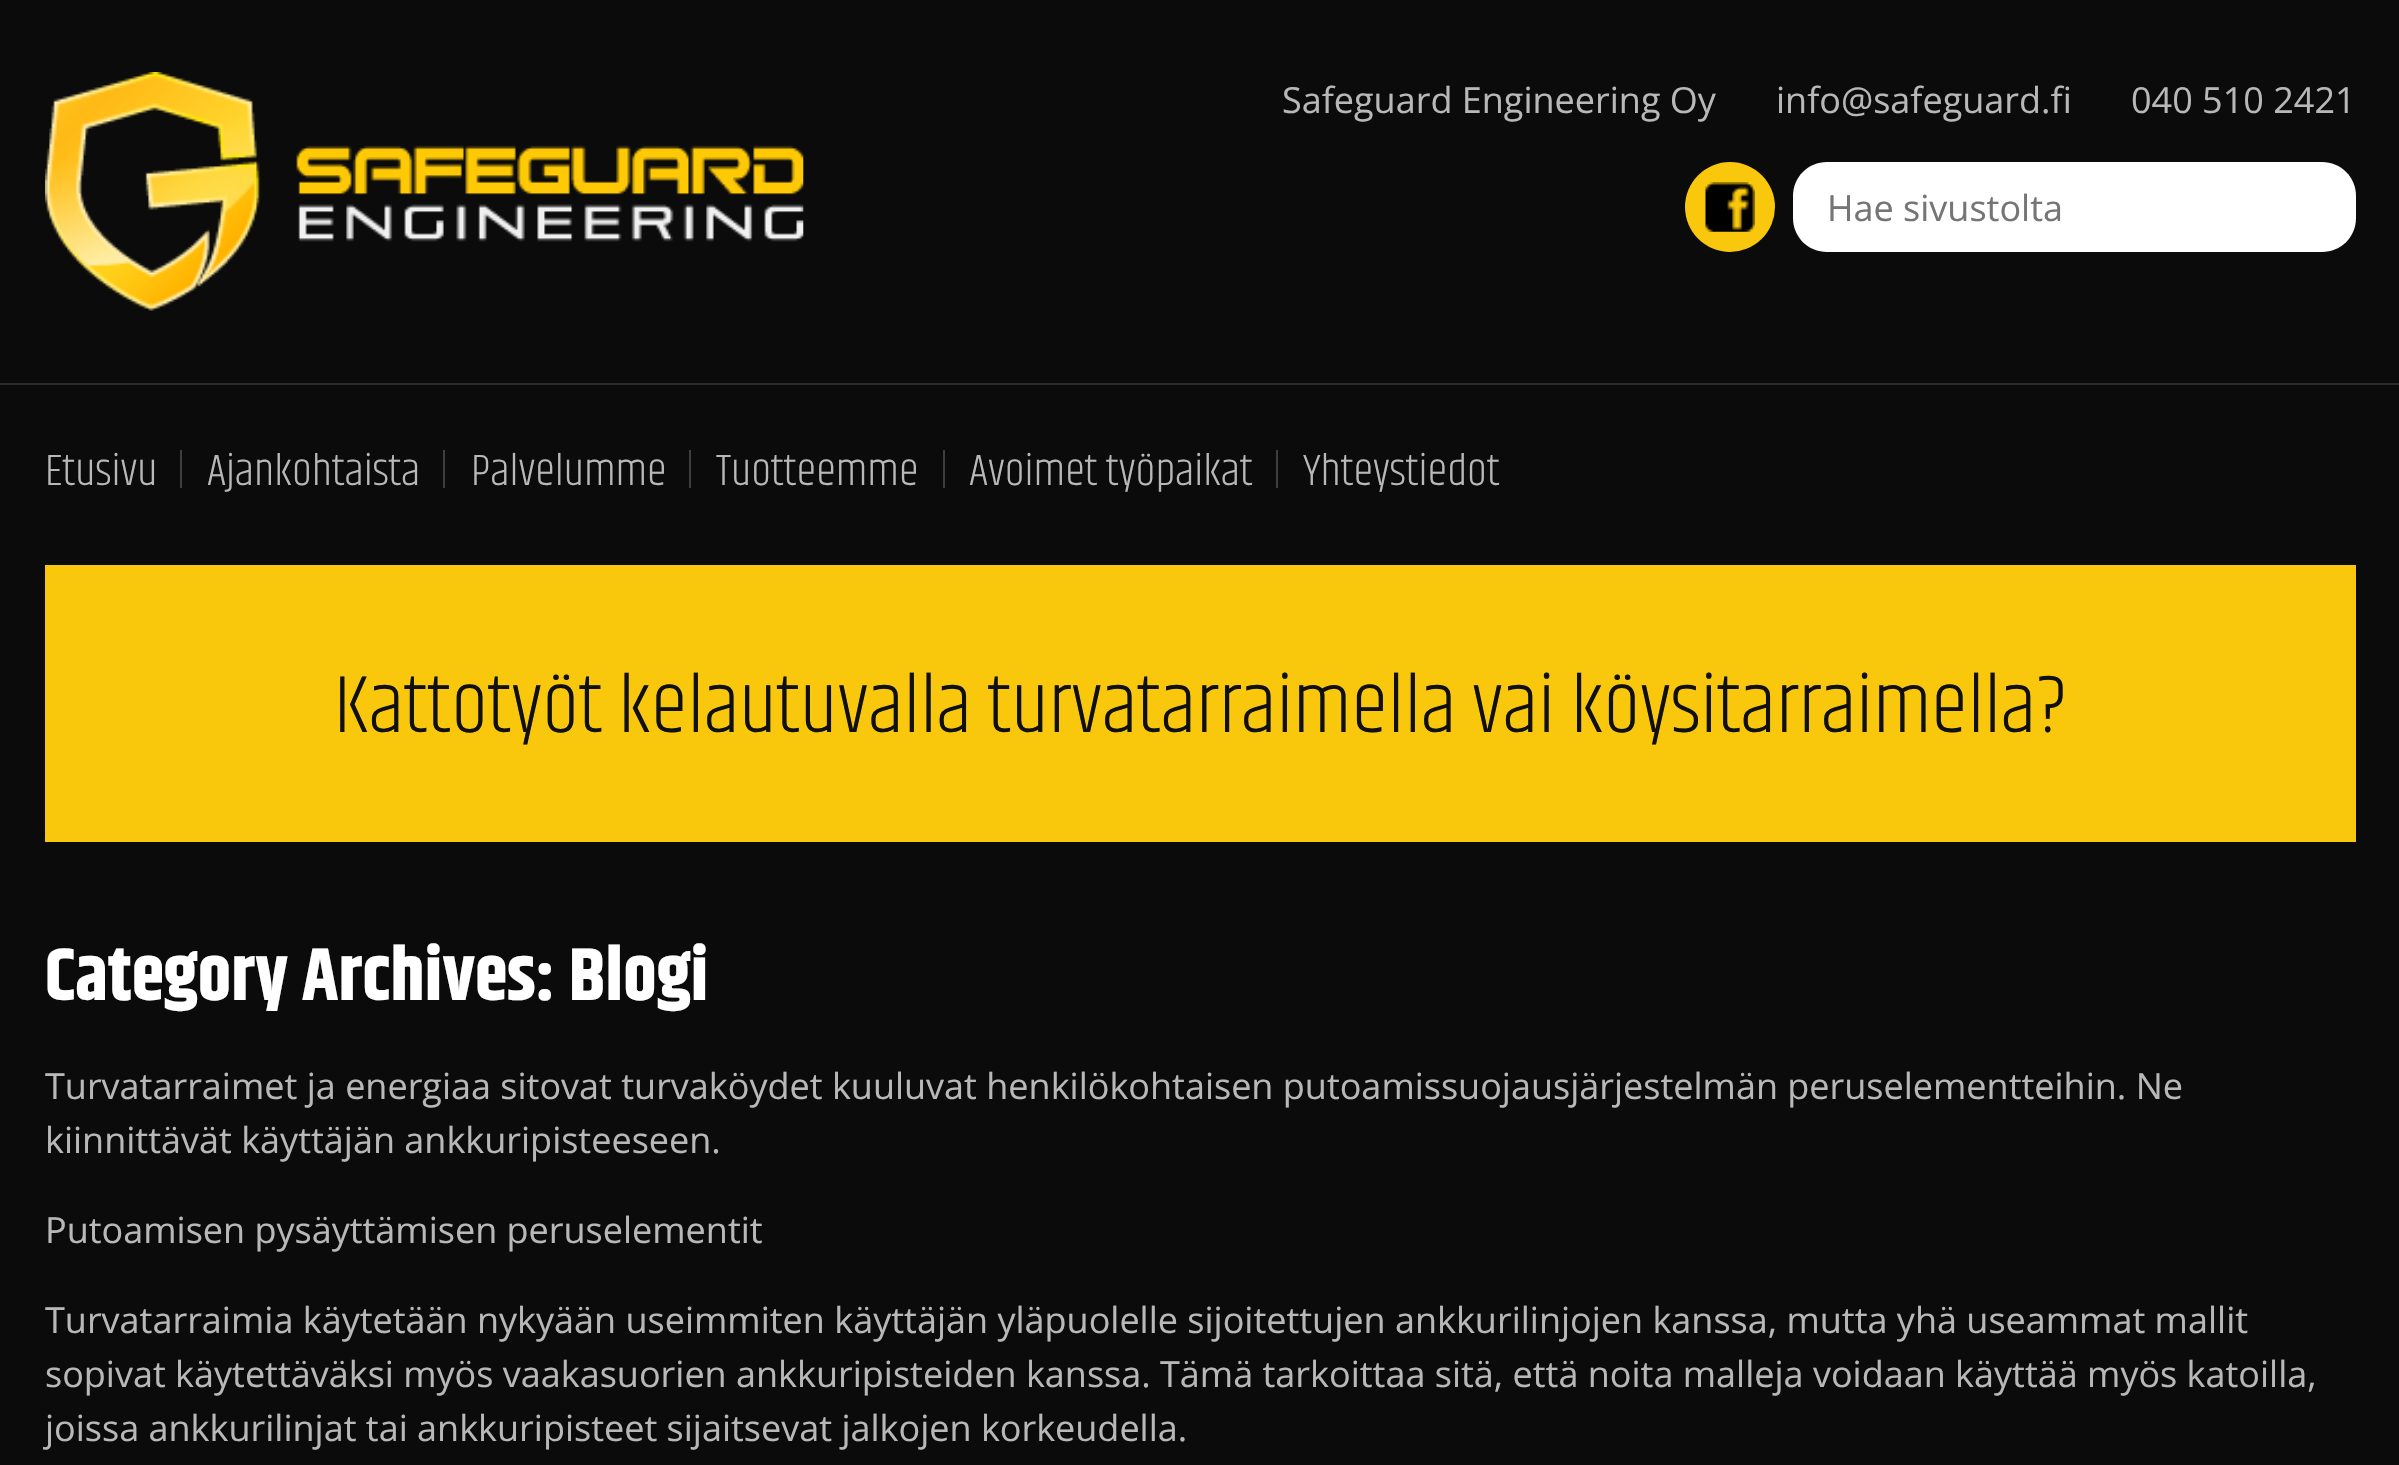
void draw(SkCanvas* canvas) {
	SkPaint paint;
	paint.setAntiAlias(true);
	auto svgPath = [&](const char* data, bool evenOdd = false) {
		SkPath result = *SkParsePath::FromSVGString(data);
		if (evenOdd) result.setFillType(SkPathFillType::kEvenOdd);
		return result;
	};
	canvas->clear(0xff0b0b0b);
	canvas->drawImageRect(SkImages::DeferredFromEncodedData(SkData::MakeFromFileName("img1.png")), SkRect::MakeXYWH(45, 72, 759, 239), SkSamplingOptions());
	SkFont f1(fontMgr->matchFamilyStyle("Open Sans", SkFontStyle::Normal()), 36);
	f1.setSubpixel(true);
	paint.setColor(0xffb8b8b8);
	canvas->drawString("Safeguard Engineering Oy", 1282, 113, f1, paint);
	canvas->drawString("info@safeguard.fi", 1776, 113, f1, paint);
	canvas->drawString("040 510 2421", 2131, 113, f1, paint);
	paint.setColor(0xfff9c70b);
	canvas->drawCircle(1730, 207, 45, paint);
	canvas->drawImageRect(SkImages::DeferredFromEncodedData(SkData::MakeFromFileName("img2.png")), SkRect::MakeXYWH(1705, 182, 50, 50), SkSamplingOptions());
	paint.setColor(0xffffffff);
	canvas->drawPath(svgPath("M1827 162H2266V252H1827C1808 252 1793 237 1793 218V196C1793 177 1808 162 1827 162Z"), paint);
	paint.setColor(0xff757575);
	canvas->drawString("Hae sivustolta", 1827, 221, f1, paint);
	paint.setColor(0xffffffff);
	canvas->drawPath(svgPath("M2266 162H2322C2341 162 2356 177 2356 196V218C2356 237 2341 252 2322 252H2266Z"), paint);
	paint.setColor(0xff2f2f2f);
	canvas->drawRect(SkRect::MakeXYWH(0, 383, 2399, 2), paint);
	SkFont f2(fontMgr->matchFamilyStyle("Khand", SkFontStyle(300, SkFontStyle::kNormal_Width, SkFontStyle::kUpright_Slant)), 45);
	f2.setSubpixel(true);
	paint.setColor(0xffb8b8b8);
	canvas->drawString("Etusivu", 45, 485, f2, paint);
	paint.setColor(0xff3e3e3e);
	canvas->drawRect(SkRect::MakeXYWH(180, 450, 2, 38), paint);
	paint.setColor(0xffb8b8b8);
	canvas->drawString("Ajankohtaista", 207, 485, f2, paint);
	paint.setColor(0xff3e3e3e);
	canvas->drawRect(SkRect::MakeXYWH(443, 450, 2, 38), paint);
	paint.setColor(0xffb8b8b8);
	canvas->drawString("Palvelumme", 471, 485, f2, paint);
	paint.setColor(0xff3e3e3e);
	canvas->drawRect(SkRect::MakeXYWH(689, 450, 2, 38), paint);
	paint.setColor(0xffb8b8b8);
	canvas->drawString("Tuotteemme", 716, 485, f2, paint);
	paint.setColor(0xff3e3e3e);
	canvas->drawRect(SkRect::MakeXYWH(943, 450, 2, 38), paint);
	paint.setColor(0xffb8b8b8);
	canvas->drawString("Avoimet työpaikat", 969, 485, f2, paint);
	paint.setColor(0xff3e3e3e);
	canvas->drawRect(SkRect::MakeXYWH(1276, 450, 2, 38), paint);
	paint.setColor(0xffb8b8b8);
	canvas->drawString("Yhteystiedot", 1303, 485, f2, paint);
	paint.setColor(0xfff9c70b);
	canvas->drawRect(SkRect::MakeXYWH(45, 565, 2311, 277), paint);
	SkFont f3(fontMgr->matchFamilyStyle("Khand", SkFontStyle(300, SkFontStyle::kNormal_Width, SkFontStyle::kUpright_Slant)), 83.25);
	f3.setSubpixel(true);
	paint.setColor(0xff101010);
	canvas->drawString("Kattotyöt kelautuvalla turvatarraimella vai köysitarraimella?", 334, 732, f3, paint);
	SkFont f4(fontMgr->matchFamilyStyle("Khand", SkFontStyle::Bold()), 74.25);
	f4.setSubpixel(true);
	paint.setColor(0xffffffff);
	canvas->drawString("Category Archives: Blogi", 45, 1000, f4, paint);
	paint.setColor(0xffb8b8b8);
	canvas->drawString("Turvatarraimet ja energiaa sitovat turvaköydet kuuluvat henkilökohtaisen putoamissuojausjärjestelmän peruselementteihin. Ne", 45, 1099, f1, paint);
	canvas->drawString("kiinnittävät käyttäjän ankkuripisteeseen.", 45, 1153, f1, paint);
	canvas->drawString("Putoamisen pysäyttämisen peruselementit", 45, 1243, f1, paint);
	canvas->drawString("Turvatarraimia käytetään nykyään useimmiten käyttäjän yläpuolelle sijoitettujen ankkurilinjojen kanssa, mutta yhä useammat mallit", 45, 1333, f1, paint);
	canvas->drawString("sopivat käytettäväksi myös vaakasuorien ankkuripisteiden kanssa. Tämä tarkoittaa sitä, että noita malleja voidaan käyttää myös katoilla,", 45, 1387, f1, paint);
	canvas->drawString("joissa ankkurilinjat tai ankkuripisteet sijaitsevat jalkojen korkeudella.", 45, 1441, f1, paint);
}
